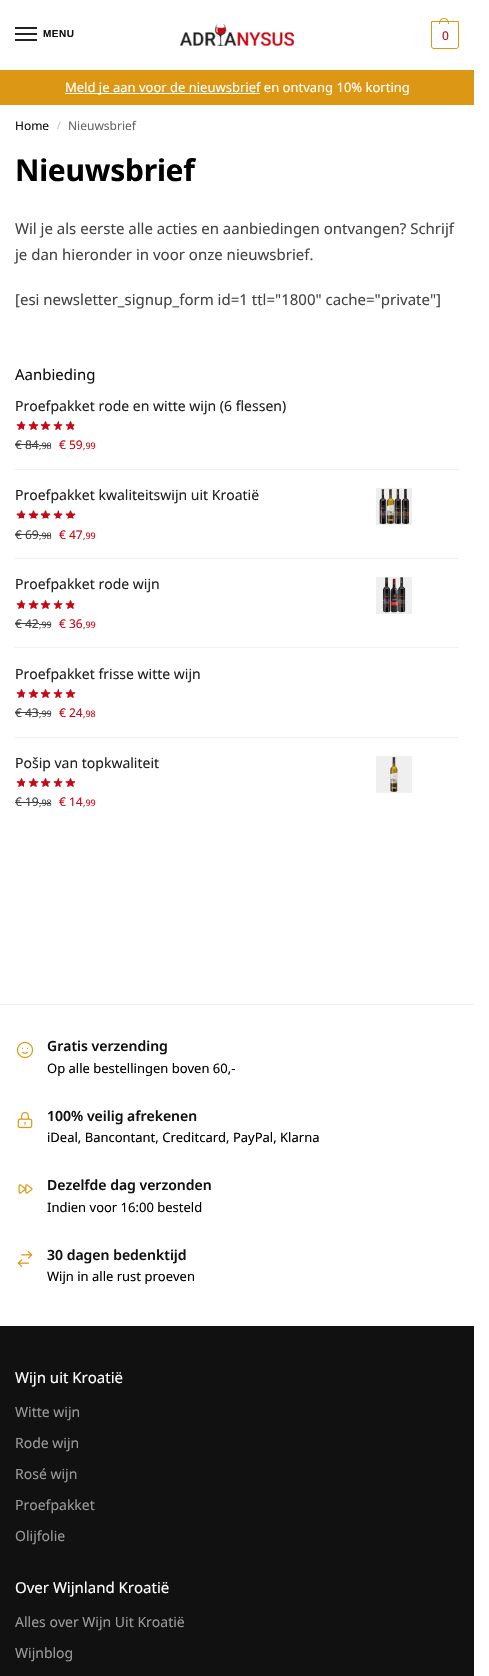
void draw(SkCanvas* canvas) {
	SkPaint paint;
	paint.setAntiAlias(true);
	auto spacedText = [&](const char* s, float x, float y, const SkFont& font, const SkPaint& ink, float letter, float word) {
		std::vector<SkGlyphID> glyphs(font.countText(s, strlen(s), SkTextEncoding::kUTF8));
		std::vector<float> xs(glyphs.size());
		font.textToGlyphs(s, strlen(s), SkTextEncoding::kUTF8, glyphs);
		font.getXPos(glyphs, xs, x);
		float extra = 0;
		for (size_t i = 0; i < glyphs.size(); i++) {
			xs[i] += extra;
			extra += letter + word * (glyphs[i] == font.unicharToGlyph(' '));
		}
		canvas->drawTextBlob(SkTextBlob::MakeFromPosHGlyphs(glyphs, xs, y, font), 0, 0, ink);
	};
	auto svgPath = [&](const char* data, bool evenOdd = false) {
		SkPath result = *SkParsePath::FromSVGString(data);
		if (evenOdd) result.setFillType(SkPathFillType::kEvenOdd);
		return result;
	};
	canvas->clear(0xffffffff);
	paint.setColor(0xff222222);
	canvas->drawRect(SkRect::MakeXYWH(15, 27, 22, 2), paint);
	canvas->drawRect(SkRect::MakeXYWH(15, 33, 22, 2), paint);
	SkFont f1(fontMgr->matchFamilyStyle("Liberation Sans", SkFontStyle::Bold()), 10);
	f1.setSubpixel(true);
	paint.setColor(0xff111111);
	spacedText("MENU", 43, 37, f1, paint, 0.5, 0);
	paint.setColor(0xff222222);
	canvas->drawRect(SkRect::MakeXYWH(15, 39, 22, 2), paint);
	canvas->drawImageRect(SkImages::DeferredFromEncodedData(SkData::MakeFromFileName("img1.png")), SkRect::MakeXYWH(179, 24, 115, 22), SkSamplingOptions());
	paint.setStroke(true);
	paint.setStrokeWidth(1);
	paint.setColor(0xffdc9814);
	canvas->drawPath(svgPath("M431.5 21.5H458.5V46C458.5 47.5 457.5 48.5 456 48.5H434C432.5 48.5 431.5 47.5 431.5 46Z"), paint);
	paint.setStroke(false);
	canvas->drawPath(svgPath("M444 18C447.5 18 449 21 449 24H439C439 21 440.5 18 444 18ZM444 19C447 19 448 21.5 448 24H440C440 21.5 441 19 444 19Z", true), paint);
	SkFont f2(fontMgr->matchFamilyStyle("Noto Sans", SkFontStyle::Normal()), 12);
	f2.setSubpixel(true);
	paint.setColor(0xffca0815);
	spacedText("0", 442, 40, f2, paint, -1, 0);
	paint.setColor(0xffdc9814);
	canvas->drawRect(SkRect::MakeXYWH(0, 70, 474, 35), paint);
	paint.setColor(0xffffffff);
	canvas->drawRect(SkRect::MakeXYWH(65, 93, 195, 1), paint);
	SkFont f3(fontMgr->matchFamilyStyle("Noto Sans", SkFontStyle::Normal()), 13);
	f3.setSubpixel(true);
	canvas->drawString("Meld je aan voor de nieuwsbrief en ontvang 10% korting", 65, 92, f3, paint);
	paint.setColor(0xff111111);
	canvas->drawString("Home", 15, 130, f2, paint);
	SkFont f4(fontMgr->matchFamilyStyle("Noto Sans", SkFontStyle::Normal()), 10);
	f4.setSubpixel(true);
	paint.setColor(0xffc2c2c2);
	canvas->drawString("/", 57, 129, f4, paint);
	paint.setColor(0xff666666);
	canvas->drawString("Nieuwsbrief", 68, 130, f2, paint);
	SkFont f5(fontMgr->matchFamilyStyle("Noto Sans", SkFontStyle::Bold()), 30);
	f5.setSubpixel(true);
	paint.setColor(0xff000000);
	spacedText("Nieuwsbrief", 15, 181, f5, paint, -0.25, 0);
	SkFont f6(fontMgr->matchFamilyStyle("Noto Sans", SkFontStyle::Normal()), 15);
	f6.setSubpixel(true);
	paint.setColor(0xff444444);
	canvas->drawString("Wil je als eerste alle acties en aanbiedingen ontvangen? Schrijf", 15, 234, f6, paint);
	canvas->drawString("je dan hieronder in voor onze nieuwsbrief.", 15, 260, f6, paint);
	canvas->drawString("[esi newsletter_signup_form id=1 ttl=\"1800\" cache=\"private\"]", 15, 305, f6, paint);
	paint.setColor(0xff111111);
	canvas->drawString("Aanbieding", 15, 380, f6, paint);
	paint.setColor(0xfff0f0f0);
	canvas->drawRect(SkRect::MakeXYWH(15, 469, 444, 1), paint);
	SkFont f7(fontMgr->matchFamilyStyle("Noto Sans", SkFontStyle::Normal()), 14);
	f7.setSubpixel(true);
	paint.setColor(0xff222222);
	canvas->drawString("Proefpakket rode en witte wijn (6 flessen)", 15, 411, f7, paint);
	canvas->drawImageRect(SkImages::DeferredFromEncodedData(SkData::MakeFromFileName("img2.png")), SkRect::MakeXYWH(16, 421, 60, 9), SkSamplingOptions());
	canvas->drawImageRect(SkImages::DeferredFromEncodedData(SkData::MakeFromFileName("img3.png")), SkRect::MakeXYWH(16, 421, 58, 9), SkSamplingOptions());
	paint.setColor(0xff444444);
	canvas->drawString("€ 84", 15, 449, f2, paint);
	paint.setColor(0xff404040);
	canvas->drawRect(SkRect::MakeXYWH(15, 444, 24, 1), paint);
	SkFont f8(fontMgr->matchFamilyStyle("Noto Sans", SkFontStyle::Normal()), 9);
	f8.setSubpixel(true);
	paint.setColor(0xff444444);
	canvas->drawString(",98", 39, 449, f8, paint);
	paint.setColor(0xff404040);
	canvas->drawRect(SkRect::MakeXYWH(39, 445, 12, 1), paint);
	paint.setColor(0xffca0815);
	canvas->drawString("€ 59", 59, 449, f2, paint);
	canvas->drawString(",99", 83, 449, f8, paint);
	paint.setColor(0xfff0f0f0);
	canvas->drawRect(SkRect::MakeXYWH(15, 558, 444, 1), paint);
	paint.setColor(0xff222222);
	canvas->drawString("Proefpakket kwaliteitswijn uit Kroatië", 15, 500, f7, paint);
	canvas->drawImageRect(SkImages::DeferredFromEncodedData(SkData::MakeFromFileName("img4.png")), SkRect::MakeXYWH(376, 488, 36, 37), SkSamplingOptions());
	canvas->drawImageRect(SkImages::DeferredFromEncodedData(SkData::MakeFromFileName("img5.png")), SkRect::MakeXYWH(16, 510, 60, 9), SkSamplingOptions());
	canvas->drawImageRect(SkImages::DeferredFromEncodedData(SkData::MakeFromFileName("img6.png")), SkRect::MakeXYWH(16, 510, 60, 9), SkSamplingOptions());
	paint.setColor(0xff444444);
	canvas->drawString("€ 69", 15, 539, f2, paint);
	paint.setColor(0xff404040);
	canvas->drawRect(SkRect::MakeXYWH(15, 534, 24, 1), paint);
	paint.setColor(0xff444444);
	canvas->drawString(",98", 39, 539, f8, paint);
	paint.setColor(0xff404040);
	canvas->drawRect(SkRect::MakeXYWH(39, 535, 12, 1), paint);
	paint.setColor(0xffca0815);
	canvas->drawString("€ 47", 59, 539, f2, paint);
	canvas->drawString(",99", 83, 539, f8, paint);
	paint.setColor(0xfff0f0f0);
	canvas->drawRect(SkRect::MakeXYWH(15, 647, 444, 1), paint);
	paint.setColor(0xff222222);
	canvas->drawString("Proefpakket rode wijn", 15, 589, f7, paint);
	canvas->drawImageRect(SkImages::DeferredFromEncodedData(SkData::MakeFromFileName("img7.png")), SkRect::MakeXYWH(376, 577, 36, 37), SkSamplingOptions());
	canvas->drawImageRect(SkImages::DeferredFromEncodedData(SkData::MakeFromFileName("img2.png")), SkRect::MakeXYWH(16, 600, 60, 9), SkSamplingOptions());
	canvas->drawImageRect(SkImages::DeferredFromEncodedData(SkData::MakeFromFileName("img3.png")), SkRect::MakeXYWH(16, 600, 58, 9), SkSamplingOptions());
	paint.setColor(0xff444444);
	canvas->drawString("€ 42", 15, 628, f2, paint);
	paint.setColor(0xff404040);
	canvas->drawRect(SkRect::MakeXYWH(15, 623, 24, 1), paint);
	paint.setColor(0xff444444);
	canvas->drawString(",99", 39, 628, f8, paint);
	paint.setColor(0xff404040);
	canvas->drawRect(SkRect::MakeXYWH(39, 624, 12, 1), paint);
	paint.setColor(0xffca0815);
	canvas->drawString("€ 36", 59, 628, f2, paint);
	canvas->drawString(",99", 83, 628, f8, paint);
	paint.setColor(0xfff0f0f0);
	canvas->drawRect(SkRect::MakeXYWH(15, 737, 444, 1), paint);
	paint.setColor(0xff222222);
	canvas->drawString("Proefpakket frisse witte wijn", 15, 679, f7, paint);
	canvas->drawImageRect(SkImages::DeferredFromEncodedData(SkData::MakeFromFileName("img2.png")), SkRect::MakeXYWH(16, 689, 60, 9), SkSamplingOptions());
	canvas->drawImageRect(SkImages::DeferredFromEncodedData(SkData::MakeFromFileName("img8.png")), SkRect::MakeXYWH(16, 689, 60, 9), SkSamplingOptions());
	paint.setColor(0xff444444);
	canvas->drawString("€ 43", 15, 717, f2, paint);
	paint.setColor(0xff404040);
	canvas->drawRect(SkRect::MakeXYWH(15, 712, 24, 1), paint);
	paint.setColor(0xff444444);
	canvas->drawString(",99", 39, 717, f8, paint);
	paint.setColor(0xff404040);
	canvas->drawRect(SkRect::MakeXYWH(39, 713, 12, 1), paint);
	paint.setColor(0xffca0815);
	canvas->drawString("€ 24", 59, 717, f2, paint);
	canvas->drawString(",98", 83, 717, f8, paint);
	paint.setColor(0xff222222);
	canvas->drawString("Pošip van topkwaliteit", 15, 768, f7, paint);
	canvas->drawImageRect(SkImages::DeferredFromEncodedData(SkData::MakeFromFileName("img9.png")), SkRect::MakeXYWH(376, 756, 36, 37), SkSamplingOptions());
	canvas->drawImageRect(SkImages::DeferredFromEncodedData(SkData::MakeFromFileName("img2.png")), SkRect::MakeXYWH(16, 778, 60, 9), SkSamplingOptions());
	canvas->drawImageRect(SkImages::DeferredFromEncodedData(SkData::MakeFromFileName("img10.png")), SkRect::MakeXYWH(16, 778, 59, 9), SkSamplingOptions());
	paint.setColor(0xff444444);
	canvas->drawString("€ 19", 15, 806, f2, paint);
	paint.setColor(0xff404040);
	canvas->drawRect(SkRect::MakeXYWH(15, 802, 24, 1), paint);
	paint.setColor(0xff444444);
	canvas->drawString(",98", 39, 806, f8, paint);
	paint.setColor(0xff404040);
	canvas->drawRect(SkRect::MakeXYWH(39, 803, 12, 1), paint);
	paint.setColor(0xffca0815);
	canvas->drawString("€ 14", 59, 806, f2, paint);
	canvas->drawString(",99", 83, 806, f8, paint);
	paint.setColor(0xffeeeeee);
	canvas->drawRect(SkRect::MakeXYWH(0, 1004, 474, 1), paint);
	SkFont f9(fontMgr->matchFamilyStyle("Noto Sans", SkFontStyle(600, SkFontStyle::kNormal_Width, SkFontStyle::kUpright_Slant)), 14);
	f9.setSubpixel(true);
	paint.setColor(0xff111111);
	canvas->drawString("Gratis verzending", 47, 1051, f9, paint);
	canvas->drawImageRect(SkImages::DeferredFromEncodedData(SkData::MakeFromFileName("img11.png")), SkRect::MakeXYWH(16, 1041, 18, 18), SkSamplingOptions());
	paint.setColor(0xff000000);
	canvas->drawString("Op alle bestellingen boven 60,-", 47, 1073, f3, paint);
	paint.setColor(0xff111111);
	canvas->drawString("100% veilig afrekenen", 47, 1121, f9, paint);
	canvas->drawImageRect(SkImages::DeferredFromEncodedData(SkData::MakeFromFileName("img12.png")), SkRect::MakeXYWH(17, 1111, 16, 18), SkSamplingOptions());
	paint.setColor(0xff000000);
	canvas->drawString("iDeal, Bancontant, Creditcard, PayPal, Klarna", 47, 1142, f3, paint);
	paint.setColor(0xff111111);
	canvas->drawString("Dezelfde dag verzonden", 47, 1190, f9, paint);
	canvas->drawImageRect(SkImages::DeferredFromEncodedData(SkData::MakeFromFileName("img13.png")), SkRect::MakeXYWH(18, 1184, 15, 10), SkSamplingOptions());
	paint.setColor(0xff000000);
	canvas->drawString("Indien voor 16:00 besteld", 47, 1212, f3, paint);
	paint.setColor(0xff111111);
	canvas->drawString("30 dagen bedenktijd", 47, 1260, f9, paint);
	canvas->drawImageRect(SkImages::DeferredFromEncodedData(SkData::MakeFromFileName("img14.png")), SkRect::MakeXYWH(17, 1250, 16, 18), SkSamplingOptions());
	paint.setColor(0xff000000);
	canvas->drawString("Wijn in alle rust proeven", 47, 1281, f3, paint);
	paint.setColor(0xff111111);
	canvas->drawRect(SkRect::MakeXYWH(0, 1326, 474, 350), paint);
	paint.setColor(0xffffffff);
	canvas->drawString("Wijn uit Kroatië", 15, 1383, f6, paint);
	paint.setColor(0xff999999);
	canvas->drawString("Witte wijn", 15, 1417, f7, paint);
	canvas->drawString("Rode wijn", 15, 1448, f7, paint);
	canvas->drawString("Rosé wijn", 15, 1479, f7, paint);
	canvas->drawString("Proefpakket", 15, 1510, f7, paint);
	canvas->drawString("Olijfolie", 15, 1541, f7, paint);
	paint.setColor(0xffffffff);
	canvas->drawString("Over Wijnland Kroatië", 15, 1593, f6, paint);
	paint.setColor(0xff999999);
	canvas->drawString("Alles over Wijn Uit Kroatië", 15, 1627, f7, paint);
	canvas->drawString("Wijnblog", 15, 1658, f7, paint);
}
